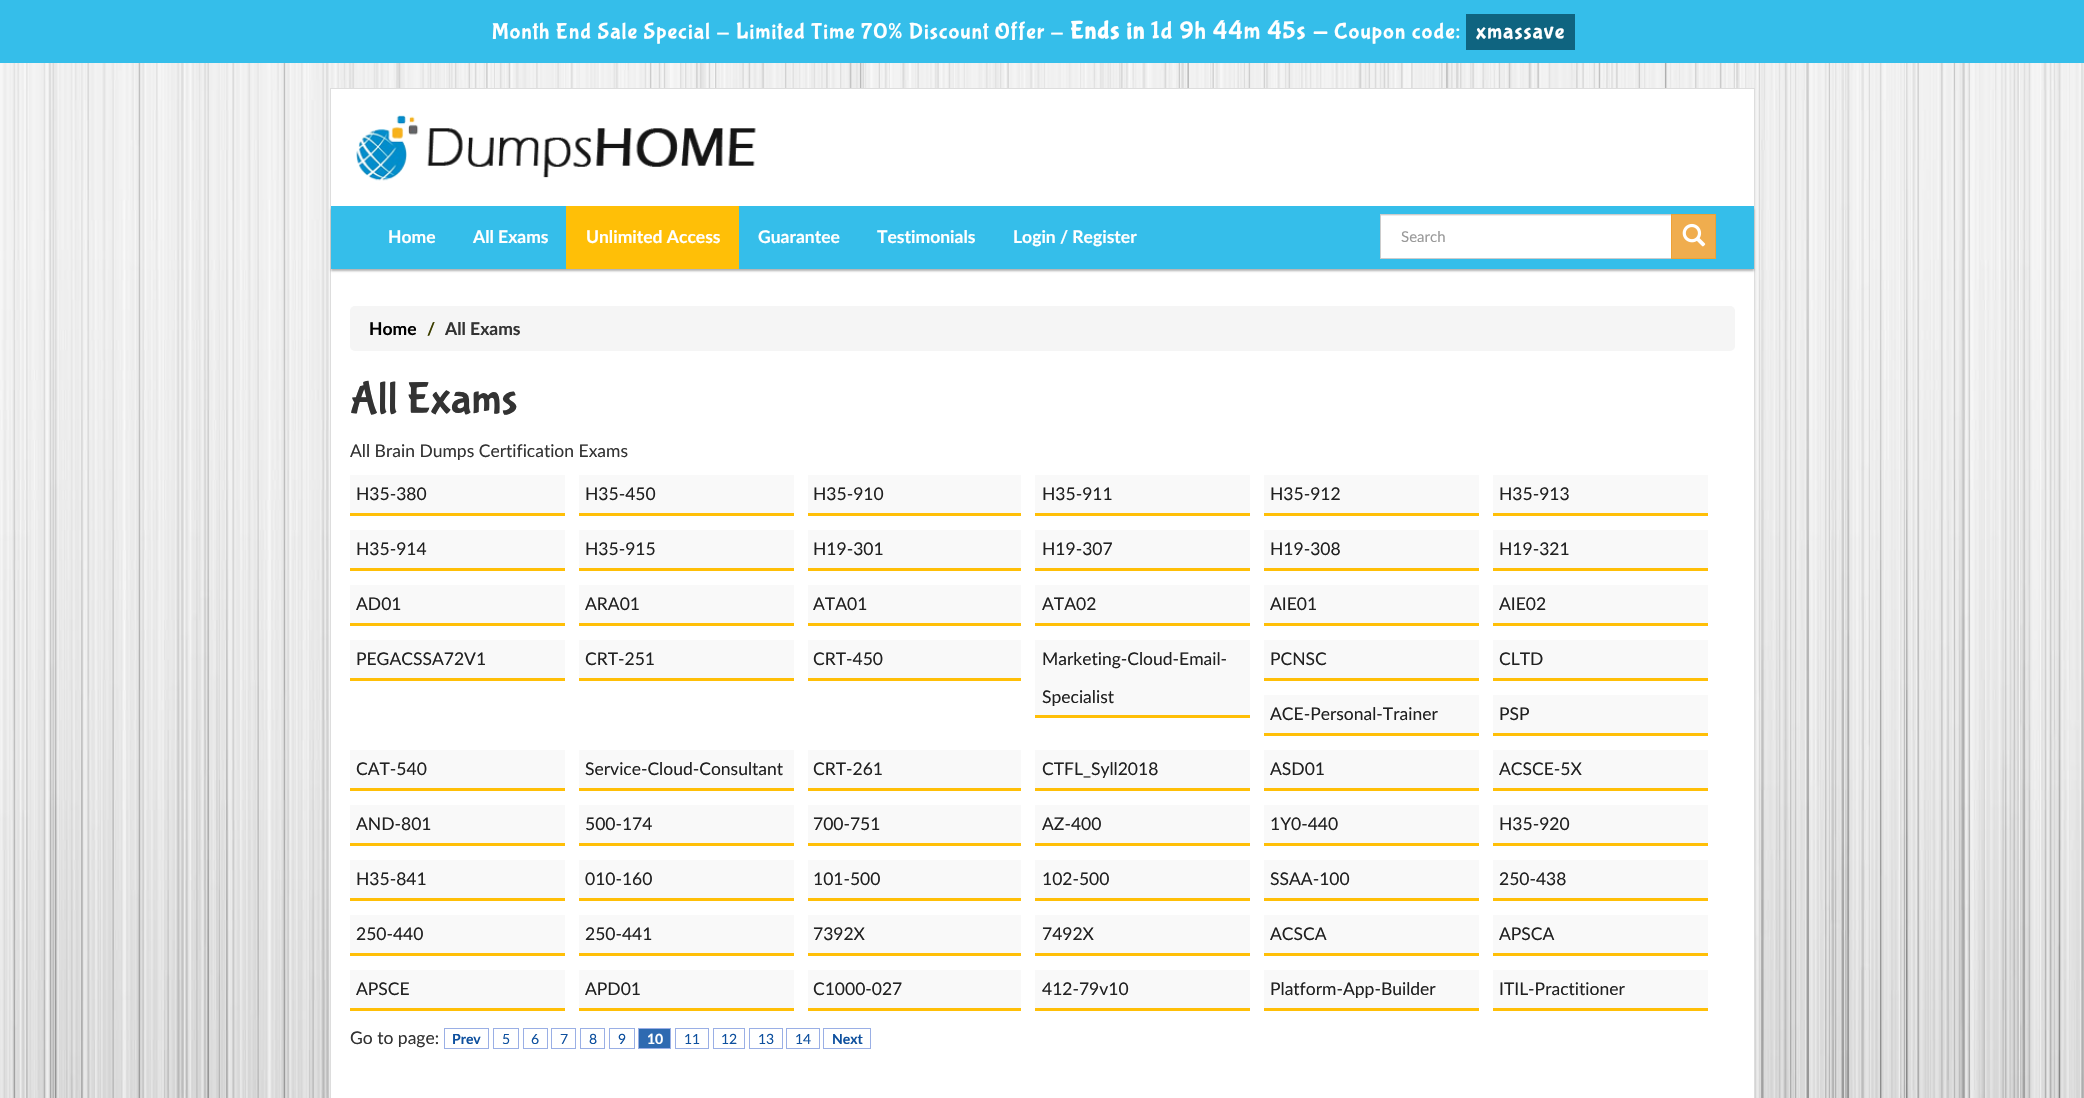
void draw(SkCanvas* canvas) {
	SkPaint paint;
	paint.setAntiAlias(true);
	auto spacedText = [&](const char* s, float x, float y, const SkFont& font, const SkPaint& ink, float letter, float word) {
		std::vector<SkGlyphID> glyphs(font.countText(s, strlen(s), SkTextEncoding::kUTF8));
		std::vector<float> xs(glyphs.size());
		font.textToGlyphs(s, strlen(s), SkTextEncoding::kUTF8, glyphs);
		font.getXPos(glyphs, xs, x);
		float extra = 0;
		for (size_t i = 0; i < glyphs.size(); i++) {
			xs[i] += extra;
			extra += letter + word * (glyphs[i] == font.unicharToGlyph(' '));
		}
		canvas->drawTextBlob(SkTextBlob::MakeFromPosHGlyphs(glyphs, xs, y, font), 0, 0, ink);
	};
	canvas->clear(0xffffffff);
	canvas->drawImageRect(SkImages::DeferredFromEncodedData(SkData::MakeFromFileName("img1.png")), SkRect::MakeXYWH(0, 63, 2084, 1035), SkSamplingOptions());
	paint.setColor(0xff35beea);
	canvas->drawRect(SkRect::MakeXYWH(0, 0, 2084, 63), paint);
	SkFont f1(fontMgr->matchFamilyStyle("Bubblegum Sans", SkFontStyle::Normal()), 22.5);
	f1.setSubpixel(true);
	paint.setColor(0xffffffff);
	spacedText("Month End Sale Special - Limited Time 70% Discount Offer -", 492, 38, f1, paint, 1, 0);
	SkFont f2(fontMgr->matchFamilyStyle("Bubblegum Sans", SkFontStyle::Bold()), 25);
	f2.setSubpixel(true);
	spacedText("Ends in", 1070, 38, f2, paint, 1, 0);
	SkFont f3(fontMgr->matchFamilyStyle("Bubblegum Sans", SkFontStyle::Normal()), 25);
	f3.setSubpixel(true);
	spacedText("1d 9h 44m 45s", 1151, 38, f3, paint, 1, 0);
	spacedText("-", 1313, 38, f2, paint, 1, 0);
	spacedText("Coupon code:", 1334, 38, f1, paint, 1, 0);
	paint.setColor(0xff0f6480);
	canvas->drawRect(SkRect::MakeXYWH(1466, 14, 109, 36), paint);
	paint.setColor(0xffffffff);
	spacedText("xmassave", 1476, 38, f1, paint, 1, 0);
	canvas->drawRect(SkRect::MakeXYWH(330.5, 88.5, 1424, 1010), paint);
	paint.setStroke(true);
	paint.setStrokeWidth(1);
	paint.setColor(0xffdddddd);
	canvas->drawRect(SkRect::MakeXYWH(330.5, 88.5, 1424, 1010), paint);
	canvas->drawImageRect(SkImages::DeferredFromEncodedData(SkData::MakeFromFileName("img2.png")), SkRect::MakeXYWH(356, 115, 400, 66), SkSamplingOptions());
	paint.setStroke(false);
	paint.setColor(0x4d000000);
	paint.setMaskFilter(SkMaskFilter::MakeBlur(kNormal_SkBlurStyle, 1));
	canvas->drawRect(SkRect::MakeXYWH(331, 209, 1423, 62), paint);
	paint.setMaskFilter(nullptr);
	paint.setColor(0xff35beea);
	canvas->drawRect(SkRect::MakeXYWH(331, 206, 1423, 63), paint);
	SkFont f4(fontMgr->matchFamilyStyle("Lato", SkFontStyle::Bold()), 17.5);
	f4.setSubpixel(true);
	paint.setColor(0xffffffff);
	canvas->drawString("Home", 388, 243, f4, paint);
	canvas->drawString("All Exams", 473, 243, f4, paint);
	paint.setColor(0xffffbf07);
	canvas->drawRect(SkRect::MakeXYWH(566, 206, 173, 63), paint);
	paint.setColor(0xffffffff);
	canvas->drawString("Unlimited Access", 586, 243, f4, paint);
	canvas->drawString("Guarantee", 758, 243, f4, paint);
	canvas->drawString("Testimonials", 877, 243, f4, paint);
	canvas->drawString("Login / Register", 1013, 243, f4, paint);
	canvas->drawRect(SkRect::MakeXYWH(1381, 216, 290, 42), paint);
	paint.setColor(0xffececec);
	canvas->drawRect(SkRect::MakeXYWH(1381, 215, 290, 1), paint);
	paint.setStroke(true);
	paint.setColor(0xffcccccc);
	canvas->drawRect(SkRect::MakeXYWH(1380.5, 214.5, 292, 44), paint);
	SkFont f5(fontMgr->matchFamilyStyle("Lato", SkFontStyle::Normal()), 15);
	f5.setSubpixel(true);
	paint.setStroke(false);
	paint.setColor(0xff999999);
	canvas->drawString("Search", 1401, 242, f5, paint);
	paint.setColor(0xfff0ad4e);
	canvas->drawRect(SkRect::MakeXYWH(1671.5, 214.5, 44, 44), paint);
	paint.setStroke(true);
	paint.setColor(0xffeea236);
	canvas->drawRect(SkRect::MakeXYWH(1671.5, 214.5, 44, 44), paint);
	canvas->drawImageRect(SkImages::DeferredFromEncodedData(SkData::MakeFromFileName("img3.png")), SkRect::MakeXYWH(1682, 223, 24, 24), SkSamplingOptions());
	paint.setStroke(false);
	paint.setColor(0xfff5f5f5);
	canvas->drawRoundRect(SkRect::MakeXYWH(350, 306, 1385, 45), 5, 5, paint);
	paint.setColor(0xff000000);
	canvas->drawString("Home", 369, 335, f4, paint);
	paint.setColor(0xff3c3e00);
	canvas->drawString("/", 427, 335, f4, paint);
	paint.setColor(0xff333333);
	canvas->drawString("All Exams", 445, 335, f4, paint);
	SkFont f6(fontMgr->matchFamilyStyle("Bubblegum Sans", SkFontStyle::Normal()), 45);
	f6.setSubpixel(true);
	canvas->drawString("All Exams", 350, 412, f6, paint);
	SkFont f7(fontMgr->matchFamilyStyle("Lato", SkFontStyle::Normal()), 17.5);
	f7.setSubpixel(true);
	canvas->drawString("All Brain Dumps Certification Exams", 350, 457, f7, paint);
	paint.setColor(0xfff9f9f9);
	canvas->drawRect(SkRect::MakeXYWH(350, 475, 215, 38), paint);
	paint.setColor(0xffffbf07);
	canvas->drawRect(SkRect::MakeXYWH(350, 513, 215, 3), paint);
	paint.setColor(0xff212121);
	canvas->drawString("H35-380", 356, 500, f7, paint);
	paint.setColor(0xfff9f9f9);
	canvas->drawRect(SkRect::MakeXYWH(579, 475, 215, 38), paint);
	paint.setColor(0xffffbf07);
	canvas->drawRect(SkRect::MakeXYWH(579, 513, 215, 3), paint);
	paint.setColor(0xff212121);
	canvas->drawString("H35-450", 585, 500, f7, paint);
	paint.setColor(0xfff9f9f9);
	canvas->drawRect(SkRect::MakeXYWH(808, 475, 213, 38), paint);
	paint.setColor(0xffffbf07);
	canvas->drawRect(SkRect::MakeXYWH(808, 513, 213, 3), paint);
	paint.setColor(0xff212121);
	canvas->drawString("H35-910", 813, 500, f7, paint);
	paint.setColor(0xfff9f9f9);
	canvas->drawRect(SkRect::MakeXYWH(1035, 475, 215, 38), paint);
	paint.setColor(0xffffbf07);
	canvas->drawRect(SkRect::MakeXYWH(1035, 513, 215, 3), paint);
	paint.setColor(0xff212121);
	canvas->drawString("H35-911", 1042, 500, f7, paint);
	paint.setColor(0xfff9f9f9);
	canvas->drawRect(SkRect::MakeXYWH(1264, 475, 215, 38), paint);
	paint.setColor(0xffffbf07);
	canvas->drawRect(SkRect::MakeXYWH(1264, 513, 215, 3), paint);
	paint.setColor(0xff212121);
	canvas->drawString("H35-912", 1270, 500, f7, paint);
	paint.setColor(0xfff9f9f9);
	canvas->drawRect(SkRect::MakeXYWH(1493, 475, 215, 38), paint);
	paint.setColor(0xffffbf07);
	canvas->drawRect(SkRect::MakeXYWH(1493, 513, 215, 3), paint);
	paint.setColor(0xff212121);
	canvas->drawString("H35-913", 1499, 500, f7, paint);
	paint.setColor(0xfff9f9f9);
	canvas->drawRect(SkRect::MakeXYWH(350, 530, 215, 38), paint);
	paint.setColor(0xffffbf07);
	canvas->drawRect(SkRect::MakeXYWH(350, 568, 215, 3), paint);
	paint.setColor(0xff212121);
	canvas->drawString("H35-914", 356, 555, f7, paint);
	paint.setColor(0xfff9f9f9);
	canvas->drawRect(SkRect::MakeXYWH(579, 530, 215, 38), paint);
	paint.setColor(0xffffbf07);
	canvas->drawRect(SkRect::MakeXYWH(579, 568, 215, 3), paint);
	paint.setColor(0xff212121);
	canvas->drawString("H35-915", 585, 555, f7, paint);
	paint.setColor(0xfff9f9f9);
	canvas->drawRect(SkRect::MakeXYWH(808, 530, 213, 38), paint);
	paint.setColor(0xffffbf07);
	canvas->drawRect(SkRect::MakeXYWH(808, 568, 213, 3), paint);
	paint.setColor(0xff212121);
	canvas->drawString("H19-301", 813, 555, f7, paint);
	paint.setColor(0xfff9f9f9);
	canvas->drawRect(SkRect::MakeXYWH(1035, 530, 215, 38), paint);
	paint.setColor(0xffffbf07);
	canvas->drawRect(SkRect::MakeXYWH(1035, 568, 215, 3), paint);
	paint.setColor(0xff212121);
	canvas->drawString("H19-307", 1042, 555, f7, paint);
	paint.setColor(0xfff9f9f9);
	canvas->drawRect(SkRect::MakeXYWH(1264, 530, 215, 38), paint);
	paint.setColor(0xffffbf07);
	canvas->drawRect(SkRect::MakeXYWH(1264, 568, 215, 3), paint);
	paint.setColor(0xff212121);
	canvas->drawString("H19-308", 1270, 555, f7, paint);
	paint.setColor(0xfff9f9f9);
	canvas->drawRect(SkRect::MakeXYWH(1493, 530, 215, 38), paint);
	paint.setColor(0xffffbf07);
	canvas->drawRect(SkRect::MakeXYWH(1493, 568, 215, 3), paint);
	paint.setColor(0xff212121);
	canvas->drawString("H19-321", 1499, 555, f7, paint);
	paint.setColor(0xfff9f9f9);
	canvas->drawRect(SkRect::MakeXYWH(350, 585, 215, 38), paint);
	paint.setColor(0xffffbf07);
	canvas->drawRect(SkRect::MakeXYWH(350, 623, 215, 3), paint);
	paint.setColor(0xff212121);
	canvas->drawString("AD01", 356, 610, f7, paint);
	paint.setColor(0xfff9f9f9);
	canvas->drawRect(SkRect::MakeXYWH(579, 585, 215, 38), paint);
	paint.setColor(0xffffbf07);
	canvas->drawRect(SkRect::MakeXYWH(579, 623, 215, 3), paint);
	paint.setColor(0xff212121);
	canvas->drawString("ARA01", 585, 610, f7, paint);
	paint.setColor(0xfff9f9f9);
	canvas->drawRect(SkRect::MakeXYWH(808, 585, 213, 38), paint);
	paint.setColor(0xffffbf07);
	canvas->drawRect(SkRect::MakeXYWH(808, 623, 213, 3), paint);
	paint.setColor(0xff212121);
	canvas->drawString("ATA01", 813, 610, f7, paint);
	paint.setColor(0xfff9f9f9);
	canvas->drawRect(SkRect::MakeXYWH(1035, 585, 215, 38), paint);
	paint.setColor(0xffffbf07);
	canvas->drawRect(SkRect::MakeXYWH(1035, 623, 215, 3), paint);
	paint.setColor(0xff212121);
	canvas->drawString("ATA02", 1042, 610, f7, paint);
	paint.setColor(0xfff9f9f9);
	canvas->drawRect(SkRect::MakeXYWH(1264, 585, 215, 38), paint);
	paint.setColor(0xffffbf07);
	canvas->drawRect(SkRect::MakeXYWH(1264, 623, 215, 3), paint);
	paint.setColor(0xff212121);
	canvas->drawString("AIE01", 1270, 610, f7, paint);
	paint.setColor(0xfff9f9f9);
	canvas->drawRect(SkRect::MakeXYWH(1493, 585, 215, 38), paint);
	paint.setColor(0xffffbf07);
	canvas->drawRect(SkRect::MakeXYWH(1493, 623, 215, 3), paint);
	paint.setColor(0xff212121);
	canvas->drawString("AIE02", 1499, 610, f7, paint);
	paint.setColor(0xfff9f9f9);
	canvas->drawRect(SkRect::MakeXYWH(350, 640, 215, 38), paint);
	paint.setColor(0xffffbf07);
	canvas->drawRect(SkRect::MakeXYWH(350, 678, 215, 3), paint);
	paint.setColor(0xff212121);
	canvas->drawString("PEGACSSA72V1", 356, 665, f7, paint);
	paint.setColor(0xfff9f9f9);
	canvas->drawRect(SkRect::MakeXYWH(579, 640, 215, 38), paint);
	paint.setColor(0xffffbf07);
	canvas->drawRect(SkRect::MakeXYWH(579, 678, 215, 3), paint);
	paint.setColor(0xff212121);
	canvas->drawString("CRT-251", 585, 665, f7, paint);
	paint.setColor(0xfff9f9f9);
	canvas->drawRect(SkRect::MakeXYWH(808, 640, 213, 38), paint);
	paint.setColor(0xffffbf07);
	canvas->drawRect(SkRect::MakeXYWH(808, 678, 213, 3), paint);
	paint.setColor(0xff212121);
	canvas->drawString("CRT-450", 813, 665, f7, paint);
	paint.setColor(0xfff9f9f9);
	canvas->drawRect(SkRect::MakeXYWH(1035, 640, 215, 75), paint);
	paint.setColor(0xffffbf07);
	canvas->drawRect(SkRect::MakeXYWH(1035, 715, 215, 3), paint);
	paint.setColor(0xff212121);
	canvas->drawString("Marketing-Cloud-Email-", 1042, 665, f7, paint);
	canvas->drawString("Specialist", 1042, 703, f7, paint);
	paint.setColor(0xfff9f9f9);
	canvas->drawRect(SkRect::MakeXYWH(1264, 640, 215, 38), paint);
	paint.setColor(0xffffbf07);
	canvas->drawRect(SkRect::MakeXYWH(1264, 678, 215, 3), paint);
	paint.setColor(0xff212121);
	canvas->drawString("PCNSC", 1270, 665, f7, paint);
	paint.setColor(0xfff9f9f9);
	canvas->drawRect(SkRect::MakeXYWH(1493, 640, 215, 38), paint);
	paint.setColor(0xffffbf07);
	canvas->drawRect(SkRect::MakeXYWH(1493, 678, 215, 3), paint);
	paint.setColor(0xff212121);
	canvas->drawString("CLTD", 1499, 665, f7, paint);
	paint.setColor(0xfff9f9f9);
	canvas->drawRect(SkRect::MakeXYWH(1264, 695, 215, 38), paint);
	paint.setColor(0xffffbf07);
	canvas->drawRect(SkRect::MakeXYWH(1264, 733, 215, 3), paint);
	paint.setColor(0xff212121);
	canvas->drawString("ACE-Personal-Trainer", 1270, 720, f7, paint);
	paint.setColor(0xfff9f9f9);
	canvas->drawRect(SkRect::MakeXYWH(1493, 695, 215, 38), paint);
	paint.setColor(0xffffbf07);
	canvas->drawRect(SkRect::MakeXYWH(1493, 733, 215, 3), paint);
	paint.setColor(0xff212121);
	canvas->drawString("PSP", 1499, 720, f7, paint);
	paint.setColor(0xfff9f9f9);
	canvas->drawRect(SkRect::MakeXYWH(350, 750, 215, 38), paint);
	paint.setColor(0xffffbf07);
	canvas->drawRect(SkRect::MakeXYWH(350, 788, 215, 3), paint);
	paint.setColor(0xff212121);
	canvas->drawString("CAT-540", 356, 775, f7, paint);
	paint.setColor(0xfff9f9f9);
	canvas->drawRect(SkRect::MakeXYWH(579, 750, 215, 38), paint);
	paint.setColor(0xffffbf07);
	canvas->drawRect(SkRect::MakeXYWH(579, 788, 215, 3), paint);
	paint.setColor(0xff212121);
	canvas->drawString("Service-Cloud-Consultant", 585, 775, f7, paint);
	paint.setColor(0xfff9f9f9);
	canvas->drawRect(SkRect::MakeXYWH(808, 750, 213, 38), paint);
	paint.setColor(0xffffbf07);
	canvas->drawRect(SkRect::MakeXYWH(808, 788, 213, 3), paint);
	paint.setColor(0xff212121);
	canvas->drawString("CRT-261", 813, 775, f7, paint);
	paint.setColor(0xfff9f9f9);
	canvas->drawRect(SkRect::MakeXYWH(1035, 750, 215, 38), paint);
	paint.setColor(0xffffbf07);
	canvas->drawRect(SkRect::MakeXYWH(1035, 788, 215, 3), paint);
	paint.setColor(0xff212121);
	canvas->drawString("CTFL_Syll2018", 1042, 775, f7, paint);
	paint.setColor(0xfff9f9f9);
	canvas->drawRect(SkRect::MakeXYWH(1264, 750, 215, 38), paint);
	paint.setColor(0xffffbf07);
	canvas->drawRect(SkRect::MakeXYWH(1264, 788, 215, 3), paint);
	paint.setColor(0xff212121);
	canvas->drawString("ASD01", 1270, 775, f7, paint);
	paint.setColor(0xfff9f9f9);
	canvas->drawRect(SkRect::MakeXYWH(1493, 750, 215, 38), paint);
	paint.setColor(0xffffbf07);
	canvas->drawRect(SkRect::MakeXYWH(1493, 788, 215, 3), paint);
	paint.setColor(0xff212121);
	canvas->drawString("ACSCE-5X", 1499, 775, f7, paint);
	paint.setColor(0xfff9f9f9);
	canvas->drawRect(SkRect::MakeXYWH(350, 805, 215, 38), paint);
	paint.setColor(0xffffbf07);
	canvas->drawRect(SkRect::MakeXYWH(350, 843, 215, 3), paint);
	paint.setColor(0xff212121);
	canvas->drawString("AND-801", 356, 830, f7, paint);
	paint.setColor(0xfff9f9f9);
	canvas->drawRect(SkRect::MakeXYWH(579, 805, 215, 38), paint);
	paint.setColor(0xffffbf07);
	canvas->drawRect(SkRect::MakeXYWH(579, 843, 215, 3), paint);
	paint.setColor(0xff212121);
	canvas->drawString("500-174", 585, 830, f7, paint);
	paint.setColor(0xfff9f9f9);
	canvas->drawRect(SkRect::MakeXYWH(808, 805, 213, 38), paint);
	paint.setColor(0xffffbf07);
	canvas->drawRect(SkRect::MakeXYWH(808, 843, 213, 3), paint);
	paint.setColor(0xff212121);
	canvas->drawString("700-751", 813, 830, f7, paint);
	paint.setColor(0xfff9f9f9);
	canvas->drawRect(SkRect::MakeXYWH(1035, 805, 215, 38), paint);
	paint.setColor(0xffffbf07);
	canvas->drawRect(SkRect::MakeXYWH(1035, 843, 215, 3), paint);
	paint.setColor(0xff212121);
	canvas->drawString("AZ-400", 1042, 830, f7, paint);
	paint.setColor(0xfff9f9f9);
	canvas->drawRect(SkRect::MakeXYWH(1264, 805, 215, 38), paint);
	paint.setColor(0xffffbf07);
	canvas->drawRect(SkRect::MakeXYWH(1264, 843, 215, 3), paint);
	paint.setColor(0xff212121);
	canvas->drawString("1Y0-440", 1270, 830, f7, paint);
	paint.setColor(0xfff9f9f9);
	canvas->drawRect(SkRect::MakeXYWH(1493, 805, 215, 38), paint);
	paint.setColor(0xffffbf07);
	canvas->drawRect(SkRect::MakeXYWH(1493, 843, 215, 3), paint);
	paint.setColor(0xff212121);
	canvas->drawString("H35-920", 1499, 830, f7, paint);
	paint.setColor(0xfff9f9f9);
	canvas->drawRect(SkRect::MakeXYWH(350, 860, 215, 38), paint);
	paint.setColor(0xffffbf07);
	canvas->drawRect(SkRect::MakeXYWH(350, 898, 215, 3), paint);
	paint.setColor(0xff212121);
	canvas->drawString("H35-841", 356, 885, f7, paint);
	paint.setColor(0xfff9f9f9);
	canvas->drawRect(SkRect::MakeXYWH(579, 860, 215, 38), paint);
	paint.setColor(0xffffbf07);
	canvas->drawRect(SkRect::MakeXYWH(579, 898, 215, 3), paint);
	paint.setColor(0xff212121);
	canvas->drawString("010-160", 585, 885, f7, paint);
	paint.setColor(0xfff9f9f9);
	canvas->drawRect(SkRect::MakeXYWH(808, 860, 213, 38), paint);
	paint.setColor(0xffffbf07);
	canvas->drawRect(SkRect::MakeXYWH(808, 898, 213, 3), paint);
	paint.setColor(0xff212121);
	canvas->drawString("101-500", 813, 885, f7, paint);
	paint.setColor(0xfff9f9f9);
	canvas->drawRect(SkRect::MakeXYWH(1035, 860, 215, 38), paint);
	paint.setColor(0xffffbf07);
	canvas->drawRect(SkRect::MakeXYWH(1035, 898, 215, 3), paint);
	paint.setColor(0xff212121);
	canvas->drawString("102-500", 1042, 885, f7, paint);
	paint.setColor(0xfff9f9f9);
	canvas->drawRect(SkRect::MakeXYWH(1264, 860, 215, 38), paint);
	paint.setColor(0xffffbf07);
	canvas->drawRect(SkRect::MakeXYWH(1264, 898, 215, 3), paint);
	paint.setColor(0xff212121);
	canvas->drawString("SSAA-100", 1270, 885, f7, paint);
	paint.setColor(0xfff9f9f9);
	canvas->drawRect(SkRect::MakeXYWH(1493, 860, 215, 38), paint);
	paint.setColor(0xffffbf07);
	canvas->drawRect(SkRect::MakeXYWH(1493, 898, 215, 3), paint);
	paint.setColor(0xff212121);
	canvas->drawString("250-438", 1499, 885, f7, paint);
	paint.setColor(0xfff9f9f9);
	canvas->drawRect(SkRect::MakeXYWH(350, 915, 215, 38), paint);
	paint.setColor(0xffffbf07);
	canvas->drawRect(SkRect::MakeXYWH(350, 953, 215, 3), paint);
	paint.setColor(0xff212121);
	canvas->drawString("250-440", 356, 940, f7, paint);
	paint.setColor(0xfff9f9f9);
	canvas->drawRect(SkRect::MakeXYWH(579, 915, 215, 38), paint);
	paint.setColor(0xffffbf07);
	canvas->drawRect(SkRect::MakeXYWH(579, 953, 215, 3), paint);
	paint.setColor(0xff212121);
	canvas->drawString("250-441", 585, 940, f7, paint);
	paint.setColor(0xfff9f9f9);
	canvas->drawRect(SkRect::MakeXYWH(808, 915, 213, 38), paint);
	paint.setColor(0xffffbf07);
	canvas->drawRect(SkRect::MakeXYWH(808, 953, 213, 3), paint);
	paint.setColor(0xff212121);
	canvas->drawString("7392X", 813, 940, f7, paint);
	paint.setColor(0xfff9f9f9);
	canvas->drawRect(SkRect::MakeXYWH(1035, 915, 215, 38), paint);
	paint.setColor(0xffffbf07);
	canvas->drawRect(SkRect::MakeXYWH(1035, 953, 215, 3), paint);
	paint.setColor(0xff212121);
	canvas->drawString("7492X", 1042, 940, f7, paint);
	paint.setColor(0xfff9f9f9);
	canvas->drawRect(SkRect::MakeXYWH(1264, 915, 215, 38), paint);
	paint.setColor(0xffffbf07);
	canvas->drawRect(SkRect::MakeXYWH(1264, 953, 215, 3), paint);
	paint.setColor(0xff212121);
	canvas->drawString("ACSCA", 1270, 940, f7, paint);
	paint.setColor(0xfff9f9f9);
	canvas->drawRect(SkRect::MakeXYWH(1493, 915, 215, 38), paint);
	paint.setColor(0xffffbf07);
	canvas->drawRect(SkRect::MakeXYWH(1493, 953, 215, 3), paint);
	paint.setColor(0xff212121);
	canvas->drawString("APSCA", 1499, 940, f7, paint);
	paint.setColor(0xfff9f9f9);
	canvas->drawRect(SkRect::MakeXYWH(350, 970, 215, 38), paint);
	paint.setColor(0xffffbf07);
	canvas->drawRect(SkRect::MakeXYWH(350, 1008, 215, 3), paint);
	paint.setColor(0xff212121);
	canvas->drawString("APSCE", 356, 995, f7, paint);
	paint.setColor(0xfff9f9f9);
	canvas->drawRect(SkRect::MakeXYWH(579, 970, 215, 38), paint);
	paint.setColor(0xffffbf07);
	canvas->drawRect(SkRect::MakeXYWH(579, 1008, 215, 3), paint);
	paint.setColor(0xff212121);
	canvas->drawString("APD01", 585, 995, f7, paint);
	paint.setColor(0xfff9f9f9);
	canvas->drawRect(SkRect::MakeXYWH(808, 970, 213, 38), paint);
	paint.setColor(0xffffbf07);
	canvas->drawRect(SkRect::MakeXYWH(808, 1008, 213, 3), paint);
	paint.setColor(0xff212121);
	canvas->drawString("C1000-027", 813, 995, f7, paint);
	paint.setColor(0xfff9f9f9);
	canvas->drawRect(SkRect::MakeXYWH(1035, 970, 215, 38), paint);
	paint.setColor(0xffffbf07);
	canvas->drawRect(SkRect::MakeXYWH(1035, 1008, 215, 3), paint);
	paint.setColor(0xff212121);
	canvas->drawString("412-79v10", 1042, 995, f7, paint);
	paint.setColor(0xfff9f9f9);
	canvas->drawRect(SkRect::MakeXYWH(1264, 970, 215, 38), paint);
	paint.setColor(0xffffbf07);
	canvas->drawRect(SkRect::MakeXYWH(1264, 1008, 215, 3), paint);
	paint.setColor(0xff212121);
	canvas->drawString("Platform-App-Builder", 1270, 995, f7, paint);
	paint.setColor(0xfff9f9f9);
	canvas->drawRect(SkRect::MakeXYWH(1493, 970, 215, 38), paint);
	paint.setColor(0xffffbf07);
	canvas->drawRect(SkRect::MakeXYWH(1493, 1008, 215, 3), paint);
	paint.setColor(0xff212121);
	canvas->drawString("ITIL-Practitioner", 1499, 995, f7, paint);
	paint.setColor(0xff333333);
	canvas->drawString("Go to page:", 350, 1044, f7, paint);
	paint.setStroke(true);
	paint.setColor(0xff9aafe5);
	canvas->drawRect(SkRect::MakeXYWH(444.5, 1028.5, 44, 20), paint);
	SkFont f8(fontMgr->matchFamilyStyle("Lato", SkFontStyle::Bold()), 14);
	f8.setSubpixel(true);
	paint.setStroke(false);
	paint.setColor(0xff0e509e);
	canvas->drawString("Prev", 452, 1044, f8, paint);
	paint.setStroke(true);
	paint.setColor(0xff9aafe5);
	canvas->drawRect(SkRect::MakeXYWH(493.5, 1028.5, 25, 20), paint);
	SkFont f9(fontMgr->matchFamilyStyle("Lato", SkFontStyle::Normal()), 14);
	f9.setSubpixel(true);
	paint.setStroke(false);
	paint.setColor(0xff0e509e);
	canvas->drawString("5", 502, 1044, f9, paint);
	paint.setStroke(true);
	paint.setColor(0xff9aafe5);
	canvas->drawRect(SkRect::MakeXYWH(523.5, 1028.5, 24, 20), paint);
	paint.setStroke(false);
	paint.setColor(0xff0e509e);
	canvas->drawString("6", 531, 1044, f9, paint);
	paint.setStroke(true);
	paint.setColor(0xff9aafe5);
	canvas->drawRect(SkRect::MakeXYWH(551.5, 1028.5, 24, 20), paint);
	paint.setStroke(false);
	paint.setColor(0xff0e509e);
	canvas->drawString("7", 560, 1044, f9, paint);
	paint.setStroke(true);
	paint.setColor(0xff9aafe5);
	canvas->drawRect(SkRect::MakeXYWH(580.5, 1028.5, 24, 20), paint);
	paint.setStroke(false);
	paint.setColor(0xff0e509e);
	canvas->drawString("8", 589, 1044, f9, paint);
	paint.setStroke(true);
	paint.setColor(0xff9aafe5);
	canvas->drawRect(SkRect::MakeXYWH(609.5, 1028.5, 25, 20), paint);
	paint.setStroke(false);
	paint.setColor(0xff0e509e);
	canvas->drawString("9", 618, 1044, f9, paint);
	paint.setColor(0xff2e6ab1);
	canvas->drawRect(SkRect::MakeXYWH(638.5, 1028.5, 32, 20), paint);
	paint.setStroke(true);
	paint.setColor(0xff9aafe5);
	canvas->drawRect(SkRect::MakeXYWH(638.5, 1028.5, 32, 20), paint);
	paint.setStroke(false);
	paint.setColor(0xffffffff);
	canvas->drawString("10", 647, 1044, f8, paint);
	paint.setStroke(true);
	paint.setColor(0xff9aafe5);
	canvas->drawRect(SkRect::MakeXYWH(675.5, 1028.5, 33, 20), paint);
	paint.setStroke(false);
	paint.setColor(0xff0e509e);
	canvas->drawString("11", 684, 1044, f9, paint);
	paint.setStroke(true);
	paint.setColor(0xff9aafe5);
	canvas->drawRect(SkRect::MakeXYWH(713.5, 1028.5, 31, 20), paint);
	paint.setStroke(false);
	paint.setColor(0xff0e509e);
	canvas->drawString("12", 721, 1044, f9, paint);
	paint.setStroke(true);
	paint.setColor(0xff9aafe5);
	canvas->drawRect(SkRect::MakeXYWH(749.5, 1028.5, 33, 20), paint);
	paint.setStroke(false);
	paint.setColor(0xff0e509e);
	canvas->drawString("13", 758, 1044, f9, paint);
	paint.setStroke(true);
	paint.setColor(0xff9aafe5);
	canvas->drawRect(SkRect::MakeXYWH(786.5, 1028.5, 33, 20), paint);
	paint.setStroke(false);
	paint.setColor(0xff0e509e);
	canvas->drawString("14", 795, 1044, f9, paint);
	paint.setStroke(true);
	paint.setColor(0xff9aafe5);
	canvas->drawRect(SkRect::MakeXYWH(823.5, 1028.5, 47, 20), paint);
	paint.setStroke(false);
	paint.setColor(0xff0e509e);
	canvas->drawString("Next", 832, 1044, f8, paint);
}
